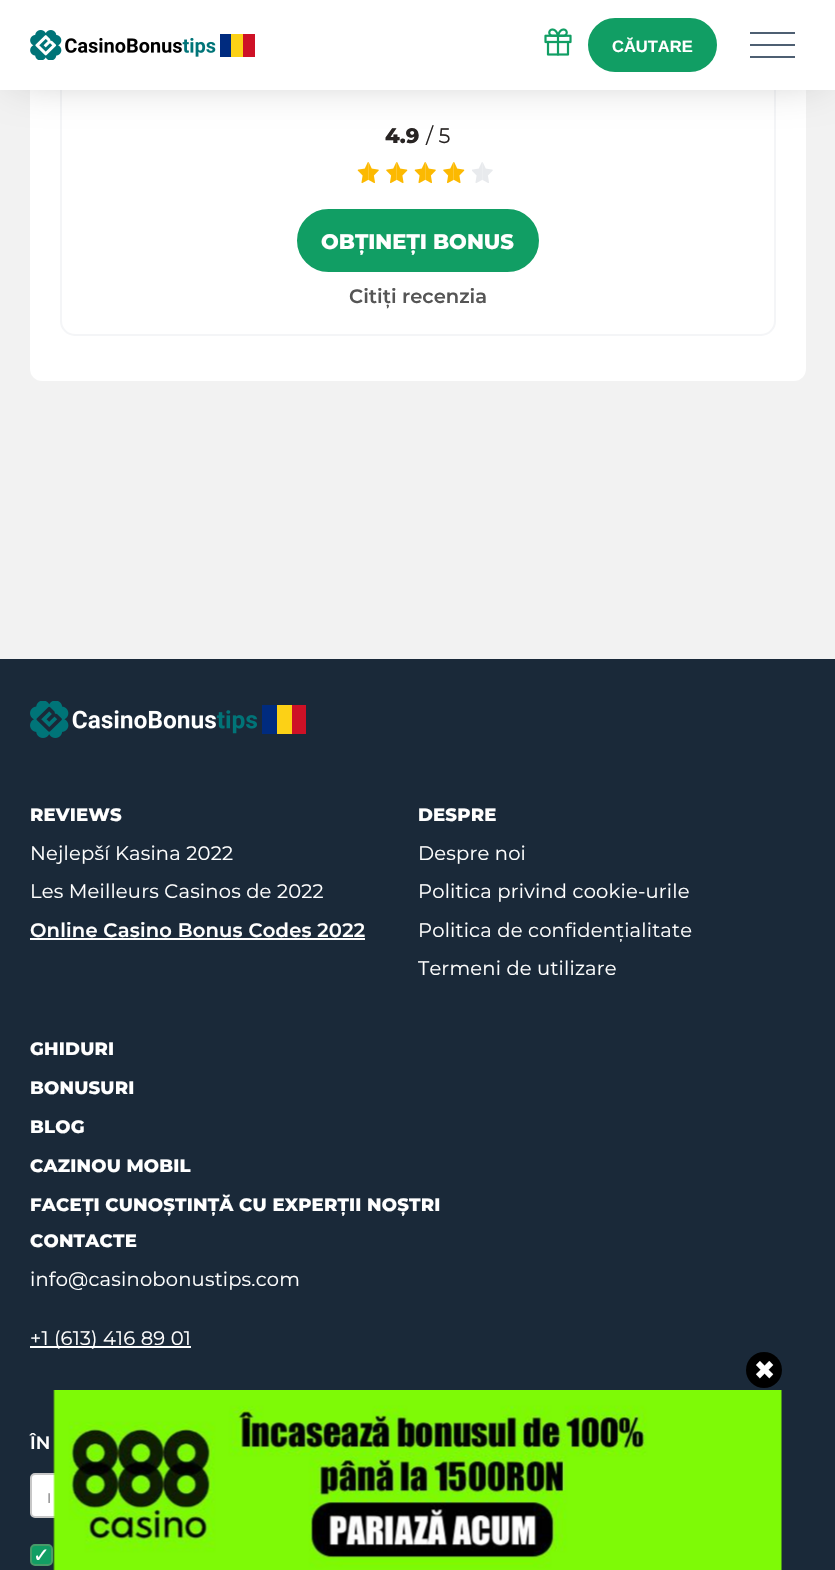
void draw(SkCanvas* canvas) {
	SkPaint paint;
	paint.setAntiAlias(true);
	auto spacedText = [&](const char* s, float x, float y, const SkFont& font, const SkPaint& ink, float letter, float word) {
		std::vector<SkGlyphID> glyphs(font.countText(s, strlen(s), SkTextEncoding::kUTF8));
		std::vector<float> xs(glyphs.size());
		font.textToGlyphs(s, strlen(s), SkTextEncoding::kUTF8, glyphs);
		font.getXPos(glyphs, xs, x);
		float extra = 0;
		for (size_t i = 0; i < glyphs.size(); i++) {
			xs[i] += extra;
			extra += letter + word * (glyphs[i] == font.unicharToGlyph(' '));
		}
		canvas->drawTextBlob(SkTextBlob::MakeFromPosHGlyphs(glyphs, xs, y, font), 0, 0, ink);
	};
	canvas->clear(0xfff2f2f2);
	paint.setColor(0xffffffff);
	canvas->drawRoundRect(SkRect::MakeXYWH(30, -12, 776, 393), 12, 12, paint);
	paint.setStroke(true);
	paint.setStrokeWidth(2);
	paint.setColor(0xfff4f5f7);
	canvas->drawRoundRect(SkRect::MakeXYWH(61, -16, 714, 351), 14, 14, paint);
	paint.setStroke(false);
	paint.setColor(0x4d000000);
	paint.setMaskFilter(SkMaskFilter::MakeBlur(kNormal_SkBlurStyle, 22.5));
	canvas->drawRect(SkRect::MakeXYWH(15, 15, 806, 60), paint);
	paint.setMaskFilter(nullptr);
	paint.setColor(0xffffffff);
	canvas->drawRect(SkRect::MakeXYWH(0, 0, 835, 90), paint);
	canvas->drawImageRect(SkImages::DeferredFromEncodedData(SkData::MakeFromFileName("img1.png")), SkRect::MakeXYWH(30, 30, 225, 30), SkSamplingOptions());
	canvas->drawImageRect(SkImages::DeferredFromEncodedData(SkData::MakeFromFileName("img2.png")), SkRect::MakeXYWH(544, 28, 28, 28), SkSamplingOptions());
	paint.setColor(0xff119e64);
	canvas->drawRoundRect(SkRect::MakeXYWH(589, 19, 127, 52), 26, 26, paint);
	paint.setStroke(true);
	canvas->drawRoundRect(SkRect::MakeXYWH(589, 19, 127, 52), 26, 26, paint);
	SkFont f1(fontMgr->matchFamilyStyle("Liberation Sans", SkFontStyle::Bold()), 16.5);
	f1.setSubpixel(true);
	paint.setStroke(false);
	paint.setColor(0xffffffff);
	canvas->drawString("CĂUTARE", 612, 52, f1, paint);
	paint.setColor(0xff4e5f72);
	canvas->drawRect(SkRect::MakeXYWH(750, 32, 45, 2), paint);
	canvas->drawRect(SkRect::MakeXYWH(750, 44, 45, 2), paint);
	canvas->drawRect(SkRect::MakeXYWH(750, 56, 45, 2), paint);
	SkFont f2(fontMgr->matchFamilyStyle("Montserrat", SkFontStyle(800, SkFontStyle::kNormal_Width, SkFontStyle::kUpright_Slant)), 21);
	f2.setSubpixel(true);
	paint.setColor(0xff282423);
	canvas->drawString("4.9", 385, 143, f2, paint);
	SkFont f3(fontMgr->matchFamilyStyle("Montserrat", SkFontStyle::Normal()), 21);
	f3.setSubpixel(true);
	canvas->drawString("/ 5", 426, 143, f3, paint);
	canvas->drawImageRect(SkImages::DeferredFromEncodedData(SkData::MakeFromFileName("img3.png")), SkRect::MakeXYWH(357, 162, 22, 22), SkSamplingOptions());
	canvas->drawImageRect(SkImages::DeferredFromEncodedData(SkData::MakeFromFileName("img4.png")), SkRect::MakeXYWH(386, 162, 22, 22), SkSamplingOptions());
	canvas->drawImageRect(SkImages::DeferredFromEncodedData(SkData::MakeFromFileName("img3.png")), SkRect::MakeXYWH(414, 162, 22, 22), SkSamplingOptions());
	canvas->drawImageRect(SkImages::DeferredFromEncodedData(SkData::MakeFromFileName("img4.png")), SkRect::MakeXYWH(443, 162, 22, 22), SkSamplingOptions());
	canvas->drawImageRect(SkImages::DeferredFromEncodedData(SkData::MakeFromFileName("img5.png")), SkRect::MakeXYWH(472, 162, 21, 21), SkSamplingOptions());
	paint.setColor(0xff119e64);
	canvas->drawRoundRect(SkRect::MakeXYWH(298, 210, 240, 61), 30.5, 30.5, paint);
	paint.setStroke(true);
	canvas->drawRoundRect(SkRect::MakeXYWH(298, 210, 240, 61), 30.5, 30.5, paint);
	paint.setStroke(false);
	paint.setColor(0xffffffff);
	canvas->drawString("OBȚINEȚI BONUS", 321, 249, f2, paint);
	SkFont f4(fontMgr->matchFamilyStyle("Montserrat", SkFontStyle(600, SkFontStyle::kNormal_Width, SkFontStyle::kUpright_Slant)), 19.5);
	f4.setSubpixel(true);
	paint.setColor(0xff555555);
	canvas->drawString("Citiți recenzia", 349, 303, f4, paint);
	paint.setColor(0xff1a2939);
	canvas->drawRect(SkRect::MakeXYWH(0, 659, 835, 911), paint);
	canvas->drawImageRect(SkImages::DeferredFromEncodedData(SkData::MakeFromFileName("img6.png")), SkRect::MakeXYWH(30, 701, 276, 37), SkSamplingOptions());
	SkFont f5(fontMgr->matchFamilyStyle("Montserrat", SkFontStyle(800, SkFontStyle::kNormal_Width, SkFontStyle::kUpright_Slant)), 18);
	f5.setSubpixel(true);
	paint.setColor(0xffffffff);
	spacedText("REVIEWS", 30, 821, f5, paint, 0.2, 0);
	SkFont f6(fontMgr->matchFamilyStyle("Montserrat", SkFontStyle::Normal()), 19.5);
	f6.setSubpixel(true);
	spacedText("Nejlepší Kasina 2022", 30, 860, f6, paint, 0.2, 0);
	spacedText("Les Meilleurs Casinos de 2022", 30, 898, f6, paint, 0.2, 0);
	spacedText("Online Casino Bonus Codes 2022", 30, 937, f4, paint, 0.2, 0);
	canvas->drawRect(SkRect::MakeXYWH(30, 938, 335, 2), paint);
	spacedText("DESPRE", 418, 821, f5, paint, 0.2, 0);
	spacedText("Despre noi", 418, 860, f6, paint, 0.2, 0);
	spacedText("Politica privind cookie-urile", 418, 898, f6, paint, 0.2, 0);
	spacedText("Politica de confidențialitate", 418, 937, f6, paint, 0.2, 0);
	spacedText("Termeni de utilizare", 418, 975, f6, paint, 0.2, 0);
	spacedText("GHIDURI", 30, 1055, f5, paint, 0.2, 0);
	spacedText("BONUSURI", 30, 1094, f5, paint, 0.2, 0);
	spacedText("BLOG", 30, 1133, f5, paint, 0.2, 0);
	spacedText("CAZINOU MOBIL", 30, 1172, f5, paint, 0.2, 0);
	spacedText("FACEȚI CUNOȘTINȚĂ CU EXPERȚII NOȘTRI", 30, 1211, f5, paint, 0.2, 0);
	spacedText("CONTACTE", 30, 1247, f5, paint, 0.2, 0);
	spacedText("info@casinobonustips.com", 30, 1286, f6, paint, 0.2, 0);
	canvas->drawRect(SkRect::MakeXYWH(30, 1346, 161, 2), paint);
	spacedText("+1 (613) 416 89 01", 30, 1345, f6, paint, 0.2, 0);
	SkFont f7(fontMgr->matchFamilyStyle("Montserrat", SkFontStyle(600, SkFontStyle::kNormal_Width, SkFontStyle::kUpright_Slant)), 18);
	f7.setSubpixel(true);
	canvas->drawString("ÎN", 30, 1449, f7, paint);
	canvas->drawRoundRect(SkRect::MakeXYWH(31, 1474, 250, 43), 4, 4, paint);
	paint.setStroke(true);
	paint.setColor(0xffc7c7c7);
	canvas->drawRoundRect(SkRect::MakeXYWH(31, 1474, 250, 43), 4, 4, paint);
	SkFont f8(fontMgr->matchFamilyStyle("Montserrat", SkFontStyle::Normal()), 14);
	f8.setSubpixel(true);
	paint.setStroke(false);
	paint.setColor(0xff757575);
	canvas->drawString("I", 47, 1503, f8, paint);
	paint.setColor(0xff119e64);
	canvas->drawRoundRect(SkRect::MakeXYWH(31, 1545, 21, 20), 4, 4, paint);
	paint.setStroke(true);
	paint.setColor(0xff489b69);
	canvas->drawRoundRect(SkRect::MakeXYWH(31, 1545, 21, 20), 4, 4, paint);
	SkFont f9(fontMgr->matchFamilyStyle("DejaVu Sans", SkFontStyle::Normal()), 20);
	f9.setSubpixel(true);
	paint.setStroke(false);
	paint.setColor(0xffffffff);
	canvas->drawString("✓", 33, 1562, f9, paint);
	paint.setColor(0xff000000);
	canvas->drawCircle(764, 1370, 18, paint);
	SkFont f10(fontMgr->matchFamilyStyle("Montserrat", SkFontStyle(800, SkFontStyle::kNormal_Width, SkFontStyle::kUpright_Slant)), 38);
	f10.setSubpixel(true);
	paint.setColor(0xffffffff);
	canvas->drawString("×", 753, 1383, f10, paint);
	canvas->drawImageRect(SkImages::DeferredFromEncodedData(SkData::MakeFromFileName("img7.png")), SkRect::MakeXYWH(53, 1390, 729, 180), SkSamplingOptions());
}
